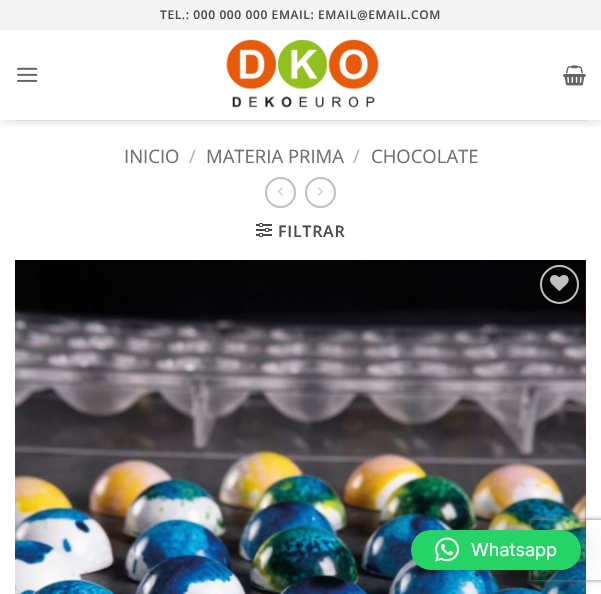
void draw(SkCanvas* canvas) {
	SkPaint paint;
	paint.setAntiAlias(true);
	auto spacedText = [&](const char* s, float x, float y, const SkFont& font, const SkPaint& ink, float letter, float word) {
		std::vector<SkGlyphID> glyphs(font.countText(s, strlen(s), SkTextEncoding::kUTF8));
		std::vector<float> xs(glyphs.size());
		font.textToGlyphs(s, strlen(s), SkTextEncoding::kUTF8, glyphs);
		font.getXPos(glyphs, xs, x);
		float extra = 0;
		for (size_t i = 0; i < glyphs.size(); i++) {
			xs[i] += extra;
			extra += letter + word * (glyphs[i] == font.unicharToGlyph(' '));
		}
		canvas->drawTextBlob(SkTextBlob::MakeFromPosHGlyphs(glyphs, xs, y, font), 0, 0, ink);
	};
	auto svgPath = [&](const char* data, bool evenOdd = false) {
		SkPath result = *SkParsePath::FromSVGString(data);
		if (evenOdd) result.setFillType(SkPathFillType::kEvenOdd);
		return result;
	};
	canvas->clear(0xffffffff);
	canvas->save();
	canvas->clipRect(SkRect::MakeXYWH(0, 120, 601, 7));
	paint.setColor(0x26000000);
	paint.setMaskFilter(SkMaskFilter::MakeBlur(kNormal_SkBlurStyle, 5));
	canvas->drawRect(SkRect::MakeXYWH(1, 1, 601, 120), paint);
	paint.setMaskFilter(nullptr);
	canvas->restore();
	paint.setColor(0xfff4f4f4);
	canvas->drawRect(SkRect::MakeXYWH(0, 0, 601, 30), paint);
	SkFont f1(fontMgr->matchFamilyStyle("Open Sans", SkFontStyle(600, SkFontStyle::kNormal_Width, SkFontStyle::kUpright_Slant)), 12);
	f1.setSubpixel(true);
	paint.setColor(0xff4a4a4a);
	spacedText("TEL.: 000 000 000 EMAIL: EMAIL@EMAIL.COM", 160, 19, f1, paint, 0.6, 0);
	canvas->drawImageRect(SkImages::DeferredFromEncodedData(SkData::MakeFromFileName("img1.png")), SkRect::MakeXYWH(17, 67, 21, 15), SkSamplingOptions());
	canvas->drawImageRect(SkImages::DeferredFromEncodedData(SkData::MakeFromFileName("img2.png")), SkRect::MakeXYWH(226, 39, 153, 69), SkSamplingOptions());
	canvas->drawImageRect(SkImages::DeferredFromEncodedData(SkData::MakeFromFileName("img3.png")), SkRect::MakeXYWH(563, 65, 23, 21), SkSamplingOptions());
	paint.setColor(0xffdadada);
	canvas->drawRect(SkRect::MakeXYWH(15, 120, 571, 1), paint);
	SkFont f2(fontMgr->matchFamilyStyle("Open Sans", SkFontStyle::Normal()), 18.5);
	f2.setSubpixel(true);
	paint.setColor(0xff6e6e6e);
	canvas->drawString("INICIO", 124, 163, f2, paint);
	paint.setColor(0xffb2b2b2);
	canvas->drawString("/", 189, 163, f2, paint);
	paint.setColor(0xff6e6e6e);
	canvas->drawString("MATERIA PRIMA", 206, 163, f2, paint);
	paint.setColor(0xffb2b2b2);
	canvas->drawString("/", 353, 163, f2, paint);
	paint.setColor(0xff6e6e6e);
	canvas->drawString("CHOCOLATE", 371, 163, f2, paint);
	paint.setStroke(true);
	paint.setStrokeWidth(2);
	paint.setColor(0xffc0c0c0);
	canvas->drawCircle(280.5, 192.5, 14.5, paint);
	canvas->drawImageRect(SkImages::DeferredFromEncodedData(SkData::MakeFromFileName("img4.png")), SkRect::MakeXYWH(278, 187, 5, 9), SkSamplingOptions());
	canvas->drawCircle(320.5, 192.5, 14.5, paint);
	canvas->drawImageRect(SkImages::DeferredFromEncodedData(SkData::MakeFromFileName("img5.png")), SkRect::MakeXYWH(318, 187, 5, 9), SkSamplingOptions());
	canvas->drawImageRect(SkImages::DeferredFromEncodedData(SkData::MakeFromFileName("img6.png")), SkRect::MakeXYWH(256, 223, 16, 14), SkSamplingOptions());
	SkFont f3(fontMgr->matchFamilyStyle("Open Sans", SkFontStyle(600, SkFontStyle::kNormal_Width, SkFontStyle::kUpright_Slant)), 16);
	f3.setSubpixel(true);
	paint.setStroke(false);
	paint.setColor(0xff4a4a4a);
	spacedText("FILTRAR", 278, 237, f3, paint, 0.75, 0);
	canvas->drawImageRect(SkImages::DeferredFromEncodedData(SkData::MakeFromFileName("img7.png")), SkRect::MakeXYWH(15, 260, 571, 334), SkSamplingOptions());
	paint.setStroke(true);
	paint.setColor(0xffc0c0c0);
	canvas->drawCircle(559.5, 284.5, 18.5, paint);
	canvas->drawImageRect(SkImages::DeferredFromEncodedData(SkData::MakeFromFileName("img8.png")), SkRect::MakeXYWH(550, 275, 19, 16), SkSamplingOptions());
	paint.setStroke(false);
	paint.setColor(0x29000000);
	paint.setMaskFilter(SkMaskFilter::MakeBlur(kNormal_SkBlurStyle, 16));
	canvas->drawRoundRect(SkRect::MakeXYWH(411, 532, 170, 40), 20, 20, paint);
	paint.setMaskFilter(nullptr);
	paint.setColor(0x0f000000);
	paint.setMaskFilter(SkMaskFilter::MakeBlur(kNormal_SkBlurStyle, 3));
	canvas->drawRoundRect(SkRect::MakeXYWH(411, 531, 170, 40), 20, 20, paint);
	paint.setMaskFilter(nullptr);
	canvas->save();
	canvas->clipPath(svgPath("M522 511H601V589H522ZM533 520H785C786 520 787 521 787 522V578C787 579 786 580 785 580H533C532 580 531 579 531 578V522C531 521 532 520 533 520Z", true), true);
	paint.setColor(0xff808080);
	paint.setMaskFilter(SkMaskFilter::MakeBlur(kNormal_SkBlurStyle, 2.5));
	canvas->drawRoundRect(SkRect::MakeXYWH(531, 520, 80, 60), 2, 2, paint);
	paint.setMaskFilter(nullptr);
	canvas->restore();
	paint.setColor(0xff25d366);
	canvas->drawRoundRect(SkRect::MakeXYWH(411, 530, 170, 40), 20, 20, paint);
	canvas->drawImageRect(SkImages::DeferredFromEncodedData(SkData::MakeFromFileName("img9.png")), SkRect::MakeXYWH(435, 537, 24, 25), SkSamplingOptions());
	SkFont f4(fontMgr->matchFamilyStyle("Inter", SkFontStyle::Normal()), 18);
	f4.setSubpixel(true);
	paint.setColor(0xffffffff);
	canvas->drawString("Whatsapp", 471, 556, f4, paint);
}
